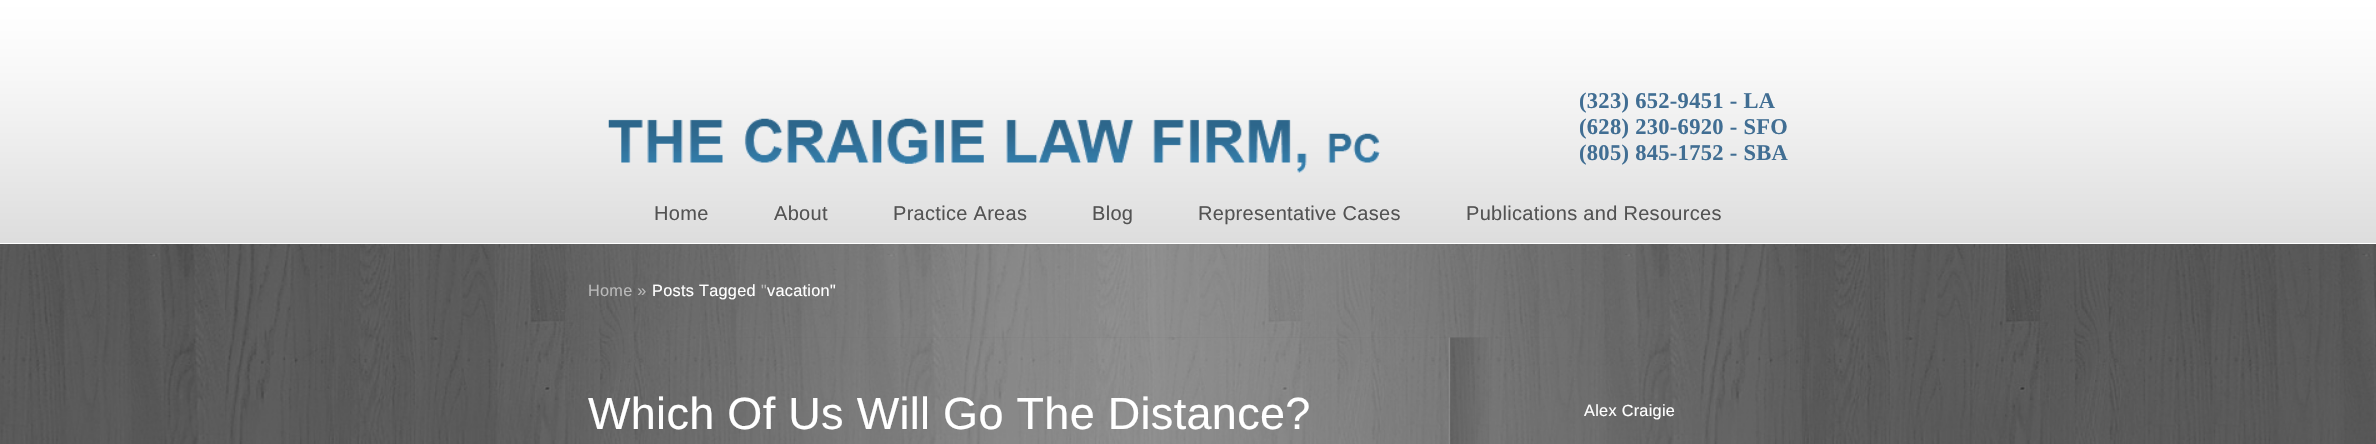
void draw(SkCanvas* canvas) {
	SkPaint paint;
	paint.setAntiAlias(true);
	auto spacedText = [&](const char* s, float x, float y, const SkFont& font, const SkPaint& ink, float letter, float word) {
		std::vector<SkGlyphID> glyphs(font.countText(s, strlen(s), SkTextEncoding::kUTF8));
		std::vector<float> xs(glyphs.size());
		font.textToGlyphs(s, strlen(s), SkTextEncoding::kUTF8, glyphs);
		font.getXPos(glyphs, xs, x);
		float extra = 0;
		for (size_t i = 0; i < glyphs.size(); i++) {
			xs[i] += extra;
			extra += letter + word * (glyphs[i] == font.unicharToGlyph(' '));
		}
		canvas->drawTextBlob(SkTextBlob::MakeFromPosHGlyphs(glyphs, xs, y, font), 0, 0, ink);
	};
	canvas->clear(0xffffffff);
	canvas->drawImageRect(SkImages::DeferredFromEncodedData(SkData::MakeFromFileName("img1.png")), SkRect::MakeXYWH(0, 244, 2376, 200), SkSamplingOptions());
	canvas->drawImageRect(SkImages::DeferredFromEncodedData(SkData::MakeFromFileName("img2.png")), SkRect::MakeXYWH(0, 0, 2376, 243), SkSamplingOptions());
	canvas->drawImageRect(SkImages::DeferredFromEncodedData(SkData::MakeFromFileName("img3.png")), SkRect::MakeXYWH(608, 118, 772, 55), SkSamplingOptions());
	SkFont f1(fontMgr->matchFamilyStyle("Liberation Serif", SkFontStyle::Bold()), 22.5);
	f1.setSubpixel(true);
	paint.setColor(0xff416e93);
	spacedText("(323) 652-9451 - LA", 1579, 108, f1, paint, 0.3, 0);
	spacedText("(628) 230-6920 - SFO", 1579, 134, f1, paint, 0.3, 0);
	spacedText("(805) 845-1752 - SBA", 1579, 160, f1, paint, 0.3, 0);
	SkFont f2(fontMgr->matchFamilyStyle("Liberation Sans", SkFontStyle::Normal()), 20);
	f2.setSubpixel(true);
	paint.setColor(0xff535353);
	spacedText("Home", 654, 220, f2, paint, 0.3, 0);
	spacedText("About", 774, 220, f2, paint, 0.3, 0);
	spacedText("Practice Areas", 893, 220, f2, paint, 0.3, 0);
	spacedText("Blog", 1092, 220, f2, paint, 0.3, 0);
	spacedText("Representative Cases", 1198, 220, f2, paint, 0.3, 0);
	spacedText("Publications and Resources", 1466, 220, f2, paint, 0.3, 0);
	canvas->drawImageRect(SkImages::DeferredFromEncodedData(SkData::MakeFromFileName("img4.png")), SkRect::MakeXYWH(495, 244, 1302, 94), SkSamplingOptions());
	SkFont f3(fontMgr->matchFamilyStyle("Liberation Sans", SkFontStyle::Normal()), 16.25);
	f3.setSubpixel(true);
	paint.setColor(0xffb9b9b9);
	spacedText("Home »", 588, 296, f3, paint, 0.3, 0);
	paint.setColor(0xffffffff);
	spacedText("Posts Tagged", 652, 296, f3, paint, 0.3, 0);
	paint.setColor(0xffb9b9b9);
	spacedText("\"", 761, 296, f3, paint, 0.3, 0);
	paint.setColor(0xffffffff);
	spacedText("vacation\"", 767, 296, f3, paint, 0.3, 0);
	canvas->drawImageRect(SkImages::DeferredFromEncodedData(SkData::MakeFromFileName("img5.png")), SkRect::MakeXYWH(495, 337, 1307, 107), SkSamplingOptions());
	canvas->drawImageRect(SkImages::DeferredFromEncodedData(SkData::MakeFromFileName("img6.png")), SkRect::MakeXYWH(1448, 337, 41, 107), SkSamplingOptions());
	SkFont f4(fontMgr->matchFamilyStyle("Liberation Sans", SkFontStyle::Normal()), 45);
	f4.setSubpixel(true);
	spacedText("Which Of Us Will Go The Distance?", 588, 429, f4, paint, 0.3, 0);
	spacedText("Alex Craigie", 1584, 416, f3, paint, 0.3, 0);
}
